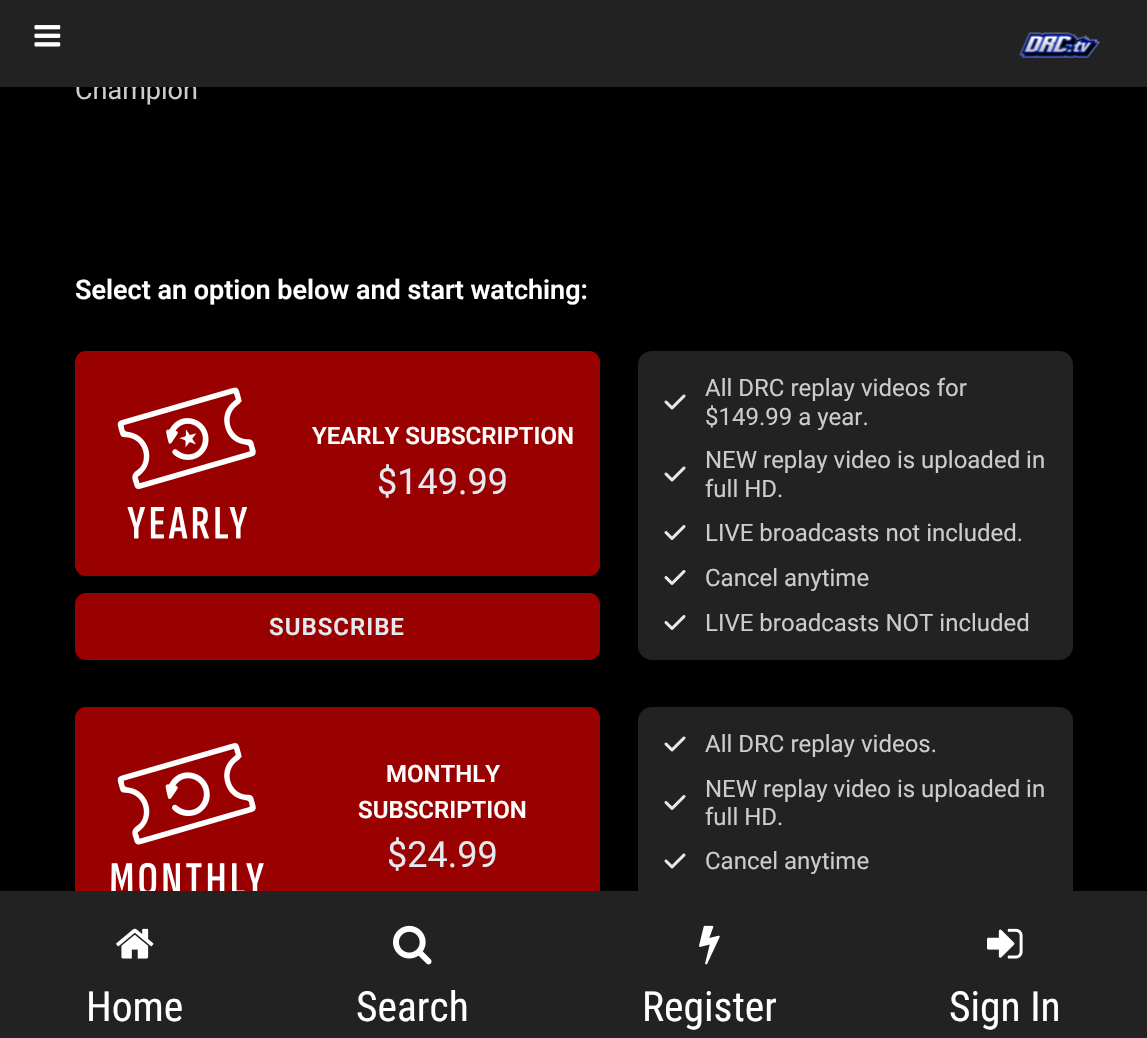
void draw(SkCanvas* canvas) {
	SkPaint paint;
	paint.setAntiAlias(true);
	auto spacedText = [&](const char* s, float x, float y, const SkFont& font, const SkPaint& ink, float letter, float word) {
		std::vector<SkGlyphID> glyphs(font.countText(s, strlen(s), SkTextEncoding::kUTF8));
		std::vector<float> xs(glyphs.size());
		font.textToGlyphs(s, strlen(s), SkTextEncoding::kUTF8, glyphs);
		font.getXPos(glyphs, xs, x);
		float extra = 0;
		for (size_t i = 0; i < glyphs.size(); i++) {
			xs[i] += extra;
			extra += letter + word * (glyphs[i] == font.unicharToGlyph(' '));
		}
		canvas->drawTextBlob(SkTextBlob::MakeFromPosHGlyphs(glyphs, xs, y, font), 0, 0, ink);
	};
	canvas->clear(0xff000000);
	SkFont f1(fontMgr->matchFamilyStyle("Roboto", SkFontStyle::Normal()), 27);
	f1.setSubpixel(true);
	paint.setColor(0xffcccccc);
	canvas->drawString("Champion", 75, 99, f1, paint);
	paint.setColor(0xff222222);
	canvas->drawRect(SkRect::MakeXYWH(0, 0, 1147, 87), paint);
	canvas->drawImageRect(SkImages::DeferredFromEncodedData(SkData::MakeFromFileName("img1.png")), SkRect::MakeXYWH(34, 25, 27, 22), SkSamplingOptions());
	canvas->drawImageRect(SkImages::DeferredFromEncodedData(SkData::MakeFromFileName("img2.png")), SkRect::MakeXYWH(1019, 32, 81, 26), SkSamplingOptions());
	SkFont f2(fontMgr->matchFamilyStyle("Roboto", SkFontStyle(600, SkFontStyle::kNormal_Width, SkFontStyle::kUpright_Slant)), 27);
	f2.setSubpixel(true);
	paint.setColor(0xffffffff);
	canvas->drawString("Select an option below and start watching:", 75, 299, f2, paint);
	paint.setColor(0xff990000);
	canvas->drawRoundRect(SkRect::MakeXYWH(75, 351, 525, 225), 11, 11, paint);
	canvas->drawImageRect(SkImages::DeferredFromEncodedData(SkData::MakeFromFileName("img3.png")), SkRect::MakeXYWH(117, 387, 139, 152), SkSamplingOptions());
	SkFont f3(fontMgr->matchFamilyStyle("Roboto", SkFontStyle(600, SkFontStyle::kNormal_Width, SkFontStyle::kUpright_Slant)), 24);
	f3.setSubpixel(true);
	paint.setColor(0xffffffff);
	canvas->drawString("YEARLY SUBSCRIPTION", 312, 444, f3, paint);
	SkFont f4(fontMgr->matchFamilyStyle("Roboto", SkFontStyle::Normal()), 36);
	f4.setSubpixel(true);
	paint.setColor(0xffe6e9ef);
	canvas->drawString("$149.99", 377, 494, f4, paint);
	paint.setColor(0xff990000);
	canvas->drawRoundRect(SkRect::MakeXYWH(75, 593, 525, 67), 11, 11, paint);
	paint.setColor(0xffe6e9ef);
	spacedText("SUBSCRIBE", 269, 635, f3, paint, 1, 0);
	paint.setColor(0xff222222);
	canvas->drawRoundRect(SkRect::MakeXYWH(638, 351, 435, 309), 14, 14, paint);
	canvas->drawImageRect(SkImages::DeferredFromEncodedData(SkData::MakeFromFileName("img4.png")), SkRect::MakeXYWH(664, 394, 22, 16), SkSamplingOptions());
	SkFont f5(fontMgr->matchFamilyStyle("Roboto", SkFontStyle::Normal()), 24);
	f5.setSubpixel(true);
	paint.setColor(0xffcccccc);
	canvas->drawString("All DRC replay videos for", 705, 396, f5, paint);
	canvas->drawString("$149.99 a year.", 705, 425, f5, paint);
	canvas->drawImageRect(SkImages::DeferredFromEncodedData(SkData::MakeFromFileName("img4.png")), SkRect::MakeXYWH(664, 466, 22, 16), SkSamplingOptions());
	canvas->drawString("NEW replay video is uploaded in", 705, 468, f5, paint);
	canvas->drawString("full HD.", 705, 497, f5, paint);
	canvas->drawImageRect(SkImages::DeferredFromEncodedData(SkData::MakeFromFileName("img5.png")), SkRect::MakeXYWH(664, 525, 22, 15), SkSamplingOptions());
	canvas->drawString("LIVE broadcasts not included.", 705, 541, f5, paint);
	canvas->drawImageRect(SkImages::DeferredFromEncodedData(SkData::MakeFromFileName("img5.png")), SkRect::MakeXYWH(664, 570, 22, 15), SkSamplingOptions());
	canvas->drawString("Cancel anytime", 705, 586, f5, paint);
	canvas->drawImageRect(SkImages::DeferredFromEncodedData(SkData::MakeFromFileName("img5.png")), SkRect::MakeXYWH(664, 615, 22, 15), SkSamplingOptions());
	canvas->drawString("LIVE broadcasts NOT included", 705, 631, f5, paint);
	paint.setColor(0xff990000);
	canvas->drawRoundRect(SkRect::MakeXYWH(75, 707, 525, 225), 11, 11, paint);
	canvas->drawImageRect(SkImages::DeferredFromEncodedData(SkData::MakeFromFileName("img6.png")), SkRect::MakeXYWH(111, 743, 153, 148), SkSamplingOptions());
	paint.setColor(0xffffffff);
	canvas->drawString("MONTHLY", 386, 782, f3, paint);
	canvas->drawString("SUBSCRIPTION", 358, 818, f3, paint);
	paint.setColor(0xffe6e9ef);
	canvas->drawString("$24.99", 387, 867, f4, paint);
	paint.setColor(0xff222222);
	canvas->drawRoundRect(SkRect::MakeXYWH(638, 707, 435, 309), 14, 14, paint);
	canvas->drawImageRect(SkImages::DeferredFromEncodedData(SkData::MakeFromFileName("img4.png")), SkRect::MakeXYWH(664, 736, 22, 16), SkSamplingOptions());
	paint.setColor(0xffcccccc);
	canvas->drawString("All DRC replay videos.", 705, 752, f5, paint);
	canvas->drawImageRect(SkImages::DeferredFromEncodedData(SkData::MakeFromFileName("img5.png")), SkRect::MakeXYWH(664, 795, 22, 15), SkSamplingOptions());
	canvas->drawString("NEW replay video is uploaded in", 705, 797, f5, paint);
	canvas->drawString("full HD.", 705, 825, f5, paint);
	canvas->drawImageRect(SkImages::DeferredFromEncodedData(SkData::MakeFromFileName("img4.png")), SkRect::MakeXYWH(664, 853, 22, 16), SkSamplingOptions());
	canvas->drawString("Cancel anytime", 705, 869, f5, paint);
	paint.setColor(0xff222222);
	canvas->drawRect(SkRect::MakeXYWH(0, 891, 1147, 147), paint);
	canvas->drawImageRect(SkImages::DeferredFromEncodedData(SkData::MakeFromFileName("img7.png")), SkRect::MakeXYWH(116, 928, 38, 31), SkSamplingOptions());
	SkFont f6(fontMgr->matchFamilyStyle("Roboto Condensed", SkFontStyle::Normal()), 41.5);
	f6.setSubpixel(true);
	paint.setColor(0xffffffff);
	canvas->drawString("Home", 86, 1021, f6, paint);
	canvas->drawImageRect(SkImages::DeferredFromEncodedData(SkData::MakeFromFileName("img8.png")), SkRect::MakeXYWH(393, 925, 39, 40), SkSamplingOptions());
	canvas->drawString("Search", 356, 1021, f6, paint);
	canvas->drawImageRect(SkImages::DeferredFromEncodedData(SkData::MakeFromFileName("img9.png")), SkRect::MakeXYWH(699, 925, 21, 40), SkSamplingOptions());
	canvas->drawString("Register", 642, 1021, f6, paint);
	canvas->drawImageRect(SkImages::DeferredFromEncodedData(SkData::MakeFromFileName("img10.png")), SkRect::MakeXYWH(987, 928, 36, 31), SkSamplingOptions());
	canvas->drawString("Sign In", 949, 1021, f6, paint);
}
